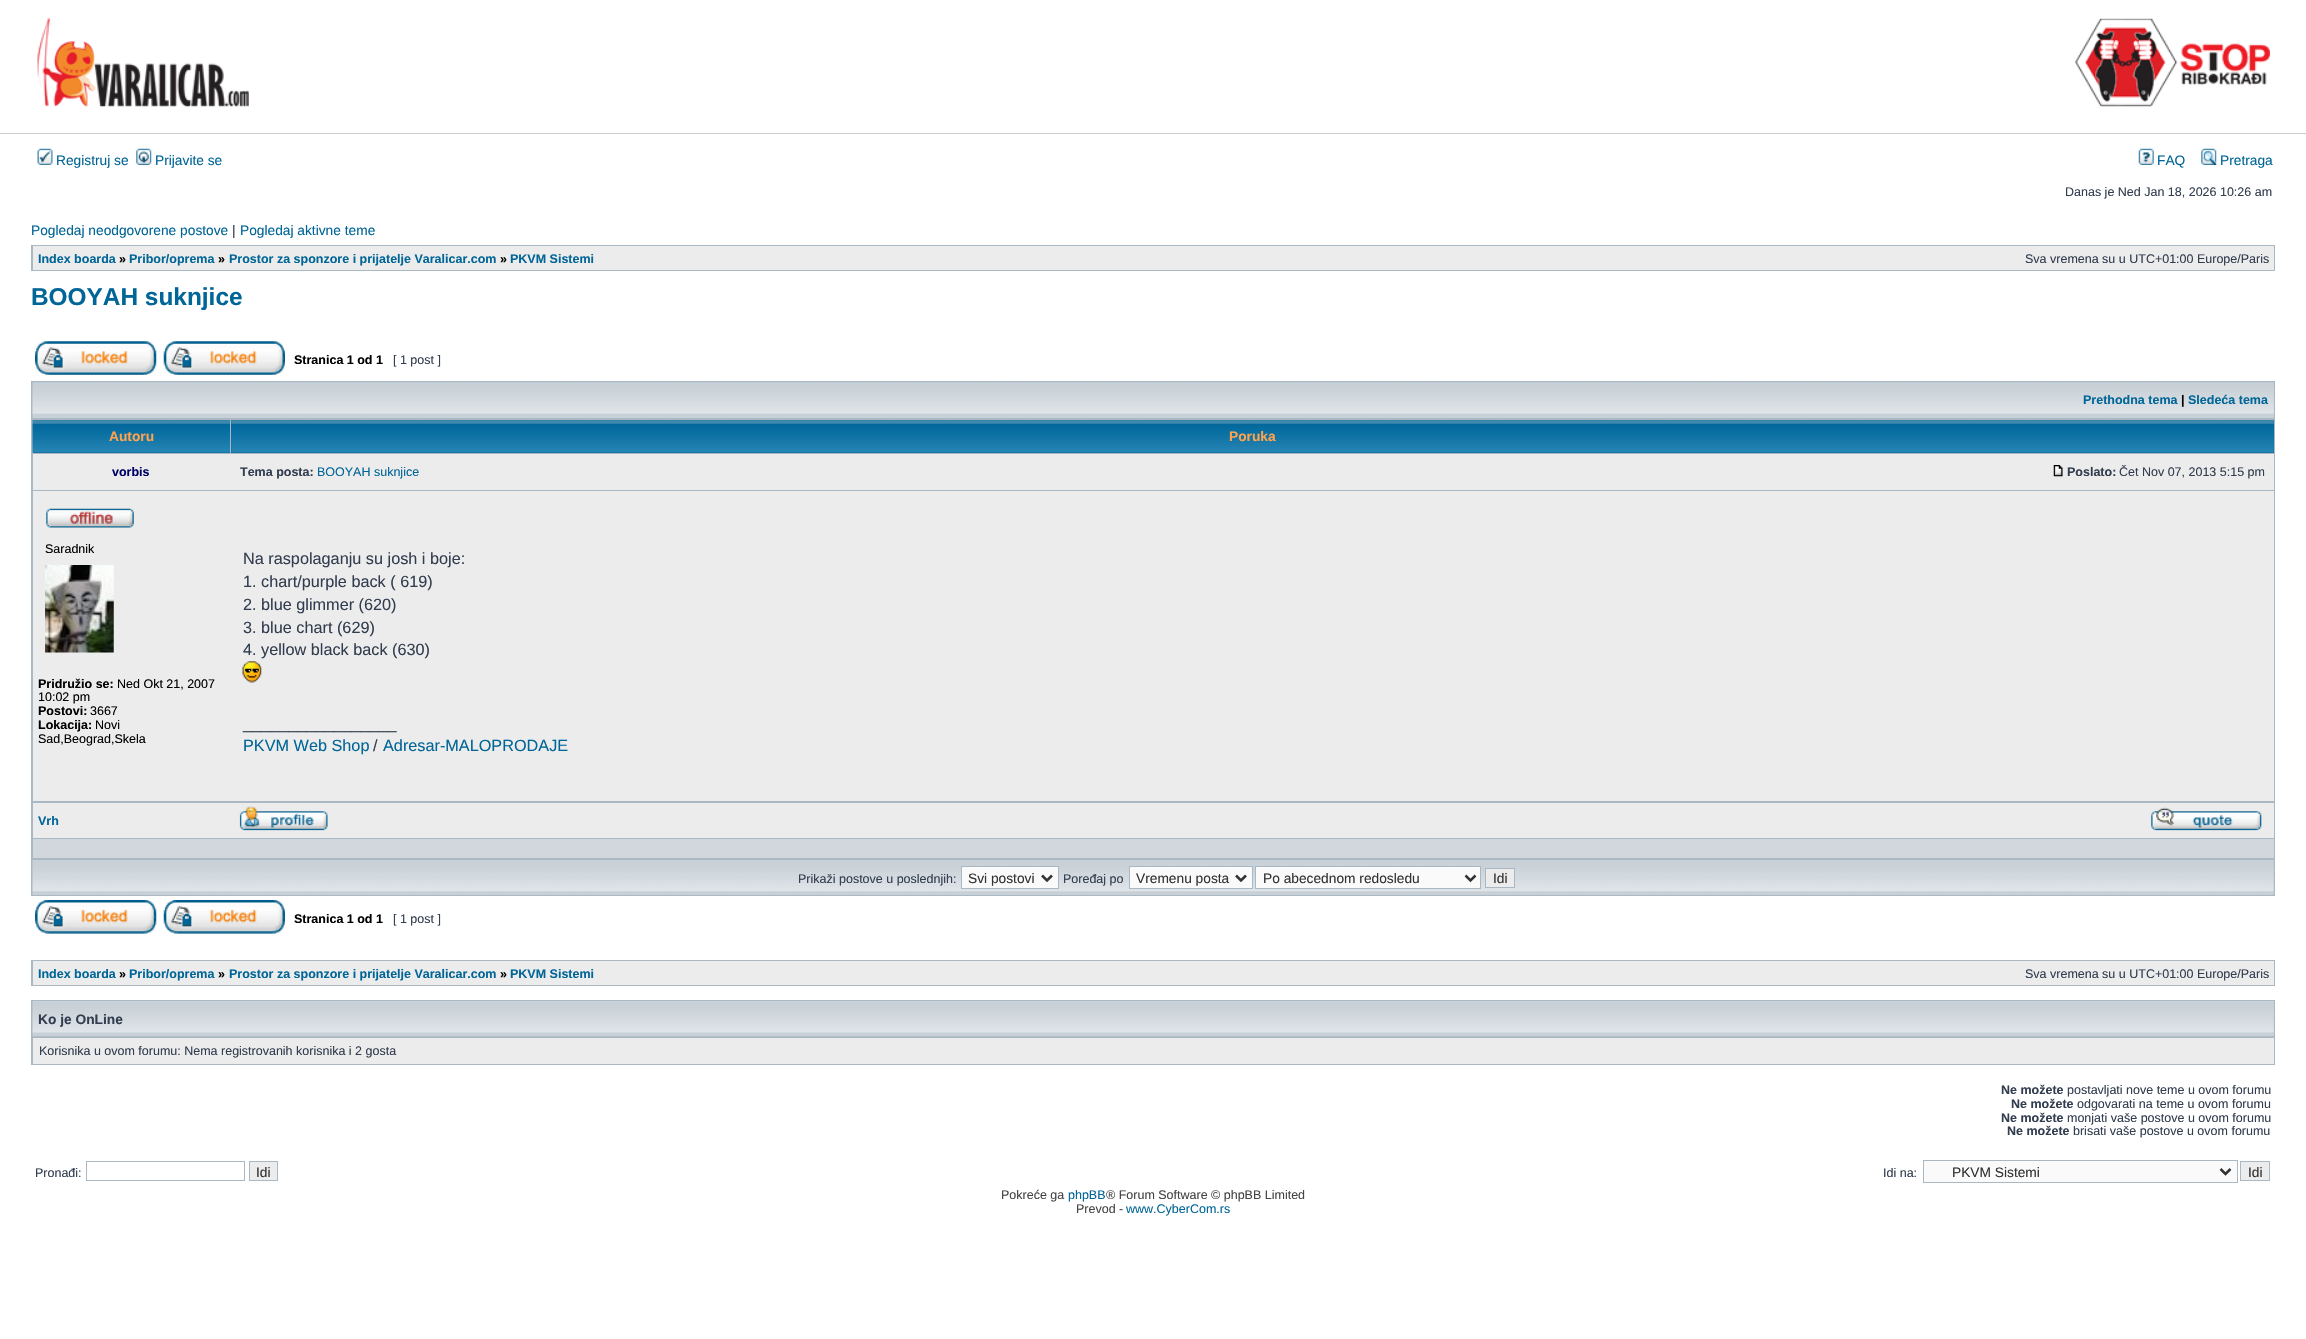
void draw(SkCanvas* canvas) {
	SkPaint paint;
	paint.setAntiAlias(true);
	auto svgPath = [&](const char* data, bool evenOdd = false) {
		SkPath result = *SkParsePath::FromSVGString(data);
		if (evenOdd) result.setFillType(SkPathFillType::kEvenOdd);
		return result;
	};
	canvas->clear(0xffffffff);
	paint.setColor(0xffcccccc);
	canvas->drawRect(SkRect::MakeXYWH(0, 133, 2306, 1), paint);
	canvas->drawImageRect(SkImages::DeferredFromEncodedData(SkData::MakeFromFileName("img1.png")), SkRect::MakeXYWH(37, 17, 212, 90), SkSamplingOptions());
	canvas->drawImageRect(SkImages::DeferredFromEncodedData(SkData::MakeFromFileName("img2.png")), SkRect::MakeXYWH(2075, 18, 195, 89), SkSamplingOptions());
	canvas->drawImageRect(SkImages::DeferredFromEncodedData(SkData::MakeFromFileName("img3.png")), SkRect::MakeXYWH(37, 148, 16, 17), SkSamplingOptions());
	SkFont f1(fontMgr->matchFamilyStyle("Liberation Sans", SkFontStyle::Normal()), 13.75);
	f1.setSubpixel(true);
	paint.setColor(0xff006597);
	canvas->drawString("Registruj se", 56, 165, f1, paint);
	canvas->drawImageRect(SkImages::DeferredFromEncodedData(SkData::MakeFromFileName("img4.png")), SkRect::MakeXYWH(136, 148, 16, 17), SkSamplingOptions());
	canvas->drawString("Prijavite se", 155, 165, f1, paint);
	canvas->drawImageRect(SkImages::DeferredFromEncodedData(SkData::MakeFromFileName("img5.png")), SkRect::MakeXYWH(2138, 148, 16, 17), SkSamplingOptions());
	canvas->drawString("FAQ", 2157, 165, f1, paint);
	canvas->drawImageRect(SkImages::DeferredFromEncodedData(SkData::MakeFromFileName("img6.png")), SkRect::MakeXYWH(2201, 148, 16, 17), SkSamplingOptions());
	canvas->drawString("Pretraga", 2220, 165, f1, paint);
	SkFont f2(fontMgr->matchFamilyStyle("Liberation Sans", SkFontStyle::Normal()), 12.5);
	f2.setSubpixel(true);
	paint.setColor(0xff323d4f);
	canvas->drawString("Danas je Ned Jan 18, 2026 10:26 am", 2065, 196, f2, paint);
	paint.setColor(0xff006597);
	canvas->drawString("Pogledaj neodgovorene postove", 31, 235, f1, paint);
	paint.setColor(0xff323d4f);
	canvas->drawString("|", 232, 235, f1, paint);
	paint.setColor(0xff006597);
	canvas->drawString("Pogledaj aktivne teme", 240, 235, f1, paint);
	paint.setColor(0xffa9b8c2);
	canvas->drawRect(SkRect::MakeXYWH(31, 245, 2244, 26), paint);
	paint.setColor(0xffececec);
	canvas->drawRect(SkRect::MakeXYWH(33, 246, 2241, 24), paint);
	SkFont f3(fontMgr->matchFamilyStyle("Liberation Sans", SkFontStyle::Bold()), 12.5);
	f3.setSubpixel(true);
	paint.setColor(0xff006597);
	canvas->drawString("Index boarda", 38, 263, f3, paint);
	paint.setColor(0xff000000);
	canvas->drawString("»", 119, 263, f3, paint);
	paint.setColor(0xff006597);
	canvas->drawString("Pribor/oprema", 129, 263, f3, paint);
	paint.setColor(0xff000000);
	canvas->drawString("»", 218, 263, f3, paint);
	paint.setColor(0xff006597);
	canvas->drawString("Prostor za sponzore i prijatelje Varalicar.com", 229, 263, f3, paint);
	paint.setColor(0xff000000);
	canvas->drawString("»", 500, 263, f3, paint);
	paint.setColor(0xff006597);
	canvas->drawString("PKVM Sistemi", 510, 263, f3, paint);
	paint.setColor(0xff323d4f);
	canvas->drawString("Sva vremena su u UTC+01:00 Europe/Paris", 2025, 263, f2, paint);
	SkFont f4(fontMgr->matchFamilyStyle("Liberation Sans", SkFontStyle::Bold()), 24.4);
	f4.setSubpixel(true);
	paint.setColor(0xff006597);
	canvas->drawString("BOOYAH suknjice", 31, 305, f4, paint);
	canvas->drawImageRect(SkImages::DeferredFromEncodedData(SkData::MakeFromFileName("img7.png")), SkRect::MakeXYWH(35, 341, 122, 34), SkSamplingOptions());
	canvas->drawImageRect(SkImages::DeferredFromEncodedData(SkData::MakeFromFileName("img8.png")), SkRect::MakeXYWH(163, 341, 122, 34), SkSamplingOptions());
	paint.setColor(0xff000000);
	canvas->drawString("Stranica 1 od 1", 294, 364, f3, paint);
	paint.setColor(0xff323d4f);
	canvas->drawString("[ 1 post ]", 393, 364, f2, paint);
	paint.setColor(0xffa9b8c2);
	canvas->drawRect(SkRect::MakeXYWH(31, 381, 2244, 515), paint);
	paint.setColor(0xffc7d0d7);
	canvas->drawRect(SkRect::MakeXYWH(33, 383, 2241, 35), paint);
	canvas->drawImageRect(SkImages::DeferredFromEncodedData(SkData::MakeFromFileName("img9.png")), SkRect::MakeXYWH(32, 382, 2242, 36), SkSamplingOptions());
	paint.setColor(0xff006597);
	canvas->drawString("Prethodna tema", 2083, 404, f3, paint);
	paint.setColor(0xff000000);
	canvas->drawString("|", 2181, 404, f3, paint);
	paint.setColor(0xff006597);
	canvas->drawString("Sledeća tema", 2188, 404, f3, paint);
	paint.setColor(0xff006699);
	canvas->drawRect(SkRect::MakeXYWH(33, 452, 197, 1), paint);
	canvas->drawImageRect(SkImages::DeferredFromEncodedData(SkData::MakeFromFileName("img10.png")), SkRect::MakeXYWH(32, 420, 198, 33), SkSamplingOptions());
	SkFont f5(fontMgr->matchFamilyStyle("Liberation Sans", SkFontStyle::Bold()), 13.75);
	f5.setSubpixel(true);
	paint.setColor(0xffffa34f);
	canvas->drawString("Autoru", 109, 441, f5, paint);
	paint.setColor(0xff006699);
	canvas->drawRect(SkRect::MakeXYWH(231, 420, 2043, 33), paint);
	canvas->drawImageRect(SkImages::DeferredFromEncodedData(SkData::MakeFromFileName("img11.png")), SkRect::MakeXYWH(231, 420, 2043, 33), SkSamplingOptions());
	paint.setColor(0xffffa34f);
	canvas->drawString("Poruka", 1229, 441, f5, paint);
	paint.setColor(0xffececec);
	canvas->drawRect(SkRect::MakeXYWH(33, 454, 2241, 36), paint);
	paint.setColor(0xff000066);
	canvas->drawString("vorbis", 112, 476, f3, paint);
	paint.setColor(0xff323d4f);
	canvas->drawString("Tema posta:", 240, 476, f3, paint);
	paint.setColor(0xff006597);
	canvas->drawString("BOOYAH suknjice", 317, 476, f2, paint);
	canvas->drawImageRect(SkImages::DeferredFromEncodedData(SkData::MakeFromFileName("img12.png")), SkRect::MakeXYWH(2053, 465, 10, 12), SkSamplingOptions());
	paint.setColor(0xff323d4f);
	canvas->drawString("Poslato:", 2067, 476, f3, paint);
	canvas->drawString("Čet Nov 07, 2013 5:15 pm", 2119, 476, f2, paint);
	paint.setColor(0xffececec);
	canvas->drawRect(SkRect::MakeXYWH(33, 491, 2241, 310), paint);
	canvas->drawImageRect(SkImages::DeferredFromEncodedData(SkData::MakeFromFileName("img13.png")), SkRect::MakeXYWH(46, 508, 88, 20), SkSamplingOptions());
	paint.setColor(0xff000000);
	canvas->drawString("Saradnik", 45, 553, f2, paint);
	canvas->drawImageRect(SkImages::DeferredFromEncodedData(SkData::MakeFromFileName("img14.png")), SkRect::MakeXYWH(45, 565, 69, 88), SkSamplingOptions());
	canvas->drawString("Pridružio se:", 38, 688, f3, paint);
	canvas->drawString("Ned Okt 21, 2007", 117, 688, f2, paint);
	canvas->drawString("10:02 pm", 38, 701, f2, paint);
	canvas->drawString("Postovi:", 38, 715, f3, paint);
	canvas->drawString("3667", 90, 715, f2, paint);
	canvas->drawString("Lokacija:", 38, 729, f3, paint);
	canvas->drawString("Novi", 95, 729, f2, paint);
	canvas->drawString("Sad,Beograd,Skela", 38, 743, f2, paint);
	SkFont f6(fontMgr->matchFamilyStyle("Liberation Sans", SkFontStyle::Normal()), 16.25);
	f6.setSubpixel(true);
	paint.setColor(0xff323d4f);
	canvas->drawString("Na raspolaganju su josh i boje:", 243, 564, f6, paint);
	canvas->drawString("1. chart/purple back ( 619)", 243, 587, f6, paint);
	canvas->drawString("2. blue glimmer (620)", 243, 610, f6, paint);
	canvas->drawString("3. blue chart (629)", 243, 633, f6, paint);
	canvas->drawString("4. yellow black back (630)", 243, 655, f6, paint);
	canvas->drawImageRect(SkImages::DeferredFromEncodedData(SkData::MakeFromFileName("img15.png")), SkRect::MakeXYWH(242, 661, 20, 22), SkSamplingOptions());
	canvas->drawString("_________________", 243, 729, f6, paint);
	paint.setColor(0xff006597);
	canvas->drawString("PKVM Web Shop", 243, 751, f6, paint);
	paint.setColor(0xff323d4f);
	canvas->drawString("/", 373, 751, f6, paint);
	paint.setColor(0xff006597);
	canvas->drawString("Adresar-MALOPRODAJE", 383, 751, f6, paint);
	paint.setColor(0xffececec);
	canvas->drawRect(SkRect::MakeXYWH(33, 803, 2241, 35), paint);
	paint.setColor(0xff006597);
	canvas->drawString("Vrh", 38, 825, f3, paint);
	canvas->drawImageRect(SkImages::DeferredFromEncodedData(SkData::MakeFromFileName("img16.png")), SkRect::MakeXYWH(239, 806, 89, 25), SkSamplingOptions());
	canvas->drawImageRect(SkImages::DeferredFromEncodedData(SkData::MakeFromFileName("img17.png")), SkRect::MakeXYWH(2151, 807, 111, 24), SkSamplingOptions());
	paint.setColor(0xffd1d7dc);
	canvas->drawRect(SkRect::MakeXYWH(33, 839, 2241, 19), paint);
	canvas->drawImageRect(SkImages::DeferredFromEncodedData(SkData::MakeFromFileName("img18.png")), SkRect::MakeXYWH(32, 860, 2242, 35), SkSamplingOptions());
	paint.setColor(0xff323d4f);
	canvas->drawString("Prikaži postove u poslednjih:", 798, 883, f2, paint);
	paint.setColor(0xfffafafa);
	canvas->drawRect(SkRect::MakeXYWH(961.5, 866.5, 97, 22), paint);
	paint.setStroke(true);
	paint.setStrokeWidth(1);
	paint.setColor(0xffa9b8c2);
	canvas->drawRect(SkRect::MakeXYWH(961.5, 866.5, 97, 22), paint);
	paint.setStrokeWidth(2.5);
	paint.setColor(0xff333333);
	canvas->drawPath(svgPath("M1042 875.5L1047 880.5L1052 875.5"), paint);
	paint.setStroke(false);
	canvas->drawString("Svi postovi", 968, 883, f1, paint);
	paint.setColor(0xff323d4f);
	canvas->drawString("Poređaj po", 1063, 883, f2, paint);
	paint.setColor(0xfffafafa);
	canvas->drawRect(SkRect::MakeXYWH(1129.5, 866.5, 123, 22), paint);
	paint.setStroke(true);
	paint.setStrokeWidth(1);
	paint.setColor(0xffa9b8c2);
	canvas->drawRect(SkRect::MakeXYWH(1129.5, 866.5, 123, 22), paint);
	paint.setStrokeWidth(2.5);
	paint.setColor(0xff333333);
	canvas->drawPath(svgPath("M1236 875.5L1241 880.5L1246 875.5"), paint);
	paint.setStroke(false);
	canvas->drawString("Vremenu posta", 1136, 883, f1, paint);
	paint.setColor(0xfffafafa);
	canvas->drawRect(SkRect::MakeXYWH(1255.5, 866.5, 225, 22), paint);
	paint.setStroke(true);
	paint.setStrokeWidth(1);
	paint.setColor(0xffa9b8c2);
	canvas->drawRect(SkRect::MakeXYWH(1255.5, 866.5, 225, 22), paint);
	paint.setStrokeWidth(2.5);
	paint.setColor(0xff333333);
	canvas->drawPath(svgPath("M1465.5 875.5L1470.5 880.5L1475.5 875.5"), paint);
	paint.setStroke(false);
	canvas->drawString("Po abecednom redosledu", 1263, 883, f1, paint);
	paint.setColor(0xffececec);
	canvas->drawRect(SkRect::MakeXYWH(1485.5, 868.5, 29, 19), paint);
	paint.setStroke(true);
	paint.setStrokeWidth(1);
	paint.setColor(0xffa9b8c2);
	canvas->drawRect(SkRect::MakeXYWH(1485.5, 868.5, 29, 19), paint);
	paint.setStroke(false);
	paint.setColor(0xff333333);
	canvas->drawString("Idi", 1493, 883, f1, paint);
	canvas->drawImageRect(SkImages::DeferredFromEncodedData(SkData::MakeFromFileName("img19.png")), SkRect::MakeXYWH(35, 900, 122, 34), SkSamplingOptions());
	canvas->drawImageRect(SkImages::DeferredFromEncodedData(SkData::MakeFromFileName("img20.png")), SkRect::MakeXYWH(163, 900, 122, 34), SkSamplingOptions());
	paint.setColor(0xff000000);
	canvas->drawString("Stranica 1 od 1", 294, 923, f3, paint);
	paint.setColor(0xff323d4f);
	canvas->drawString("[ 1 post ]", 393, 923, f2, paint);
	paint.setColor(0xffa9b8c2);
	canvas->drawRect(SkRect::MakeXYWH(31, 960, 2244, 26), paint);
	paint.setColor(0xffececec);
	canvas->drawRect(SkRect::MakeXYWH(33, 961, 2241, 24), paint);
	paint.setColor(0xff006597);
	canvas->drawString("Index boarda", 38, 978, f3, paint);
	paint.setColor(0xff000000);
	canvas->drawString("»", 119, 978, f3, paint);
	paint.setColor(0xff006597);
	canvas->drawString("Pribor/oprema", 129, 978, f3, paint);
	paint.setColor(0xff000000);
	canvas->drawString("»", 218, 978, f3, paint);
	paint.setColor(0xff006597);
	canvas->drawString("Prostor za sponzore i prijatelje Varalicar.com", 229, 978, f3, paint);
	paint.setColor(0xff000000);
	canvas->drawString("»", 500, 978, f3, paint);
	paint.setColor(0xff006597);
	canvas->drawString("PKVM Sistemi", 510, 978, f3, paint);
	paint.setColor(0xff323d4f);
	canvas->drawString("Sva vremena su u UTC+01:00 Europe/Paris", 2025, 978, f2, paint);
	paint.setColor(0xffa9b8c2);
	canvas->drawRect(SkRect::MakeXYWH(31, 1000, 2244, 65), paint);
	paint.setColor(0xffc7d0d7);
	canvas->drawRect(SkRect::MakeXYWH(33, 1001, 2241, 35), paint);
	canvas->drawImageRect(SkImages::DeferredFromEncodedData(SkData::MakeFromFileName("img21.png")), SkRect::MakeXYWH(32, 1001, 2242, 36), SkSamplingOptions());
	paint.setColor(0xff323d4f);
	canvas->drawString("Ko je OnLine", 38, 1024, f5, paint);
	paint.setColor(0xffececec);
	canvas->drawRect(SkRect::MakeXYWH(33, 1038, 2241, 26), paint);
	paint.setColor(0xff323d4f);
	canvas->drawString("Korisnika u ovom forumu: Nema registrovanih korisnika i 2 gosta", 39, 1055, f2, paint);
	canvas->drawString("Ne možete", 2001, 1094, f3, paint);
	canvas->drawString("postavljati nove teme u ovom forumu", 2067, 1094, f2, paint);
	canvas->drawString("Ne možete", 2011, 1108, f3, paint);
	canvas->drawString("odgovarati na teme u ovom forumu", 2077, 1108, f2, paint);
	canvas->drawString("Ne možete", 2001, 1122, f3, paint);
	canvas->drawString("monjati vaše postove u ovom forumu", 2067, 1122, f2, paint);
	canvas->drawString("Ne možete", 2007, 1135, f3, paint);
	canvas->drawString("brisati vaše postove u ovom forumu", 2073, 1135, f2, paint);
	canvas->drawString("Pronađi:", 35, 1177, f2, paint);
	paint.setStroke(true);
	paint.setColor(0xffa9b8c2);
	canvas->drawRect(SkRect::MakeXYWH(86.5, 1161.5, 158, 19), paint);
	paint.setStroke(false);
	paint.setColor(0xffececec);
	canvas->drawRect(SkRect::MakeXYWH(249.5, 1161.5, 28, 19), paint);
	paint.setStroke(true);
	paint.setColor(0xffa9b8c2);
	canvas->drawRect(SkRect::MakeXYWH(249.5, 1161.5, 28, 19), paint);
	paint.setStroke(false);
	paint.setColor(0xff333333);
	canvas->drawString("Idi", 256, 1177, f1, paint);
	paint.setColor(0xff323d4f);
	canvas->drawString("Idi na:", 1883, 1177, f2, paint);
	paint.setColor(0xfffafafa);
	canvas->drawRect(SkRect::MakeXYWH(1923.5, 1160.5, 314, 22), paint);
	paint.setStroke(true);
	paint.setColor(0xffa9b8c2);
	canvas->drawRect(SkRect::MakeXYWH(1923.5, 1160.5, 314, 22), paint);
	paint.setStrokeWidth(2.5);
	paint.setColor(0xff333333);
	canvas->drawPath(svgPath("M2220.5 1169L2225.5 1174L2230.5 1169"), paint);
	paint.setStroke(false);
	canvas->drawString("PKVM Sistemi", 1952, 1177, f1, paint);
	paint.setColor(0xffececec);
	canvas->drawRect(SkRect::MakeXYWH(2240.5, 1161.5, 29, 19), paint);
	paint.setStroke(true);
	paint.setStrokeWidth(1);
	paint.setColor(0xffa9b8c2);
	canvas->drawRect(SkRect::MakeXYWH(2240.5, 1161.5, 29, 19), paint);
	paint.setStroke(false);
	paint.setColor(0xff333333);
	canvas->drawString("Idi", 2248, 1177, f1, paint);
	paint.setColor(0xff444444);
	canvas->drawString("Pokreće ga", 1001, 1199, f2, paint);
	paint.setColor(0xff006597);
	canvas->drawString("phpBB", 1068, 1199, f2, paint);
	paint.setColor(0xff444444);
	canvas->drawString("® Forum Software © phpBB Limited", 1106, 1199, f2, paint);
	canvas->drawString("Prevod -", 1076, 1213, f2, paint);
	paint.setColor(0xff006597);
	canvas->drawString("www.CyberCom.rs", 1126, 1213, f2, paint);
}
